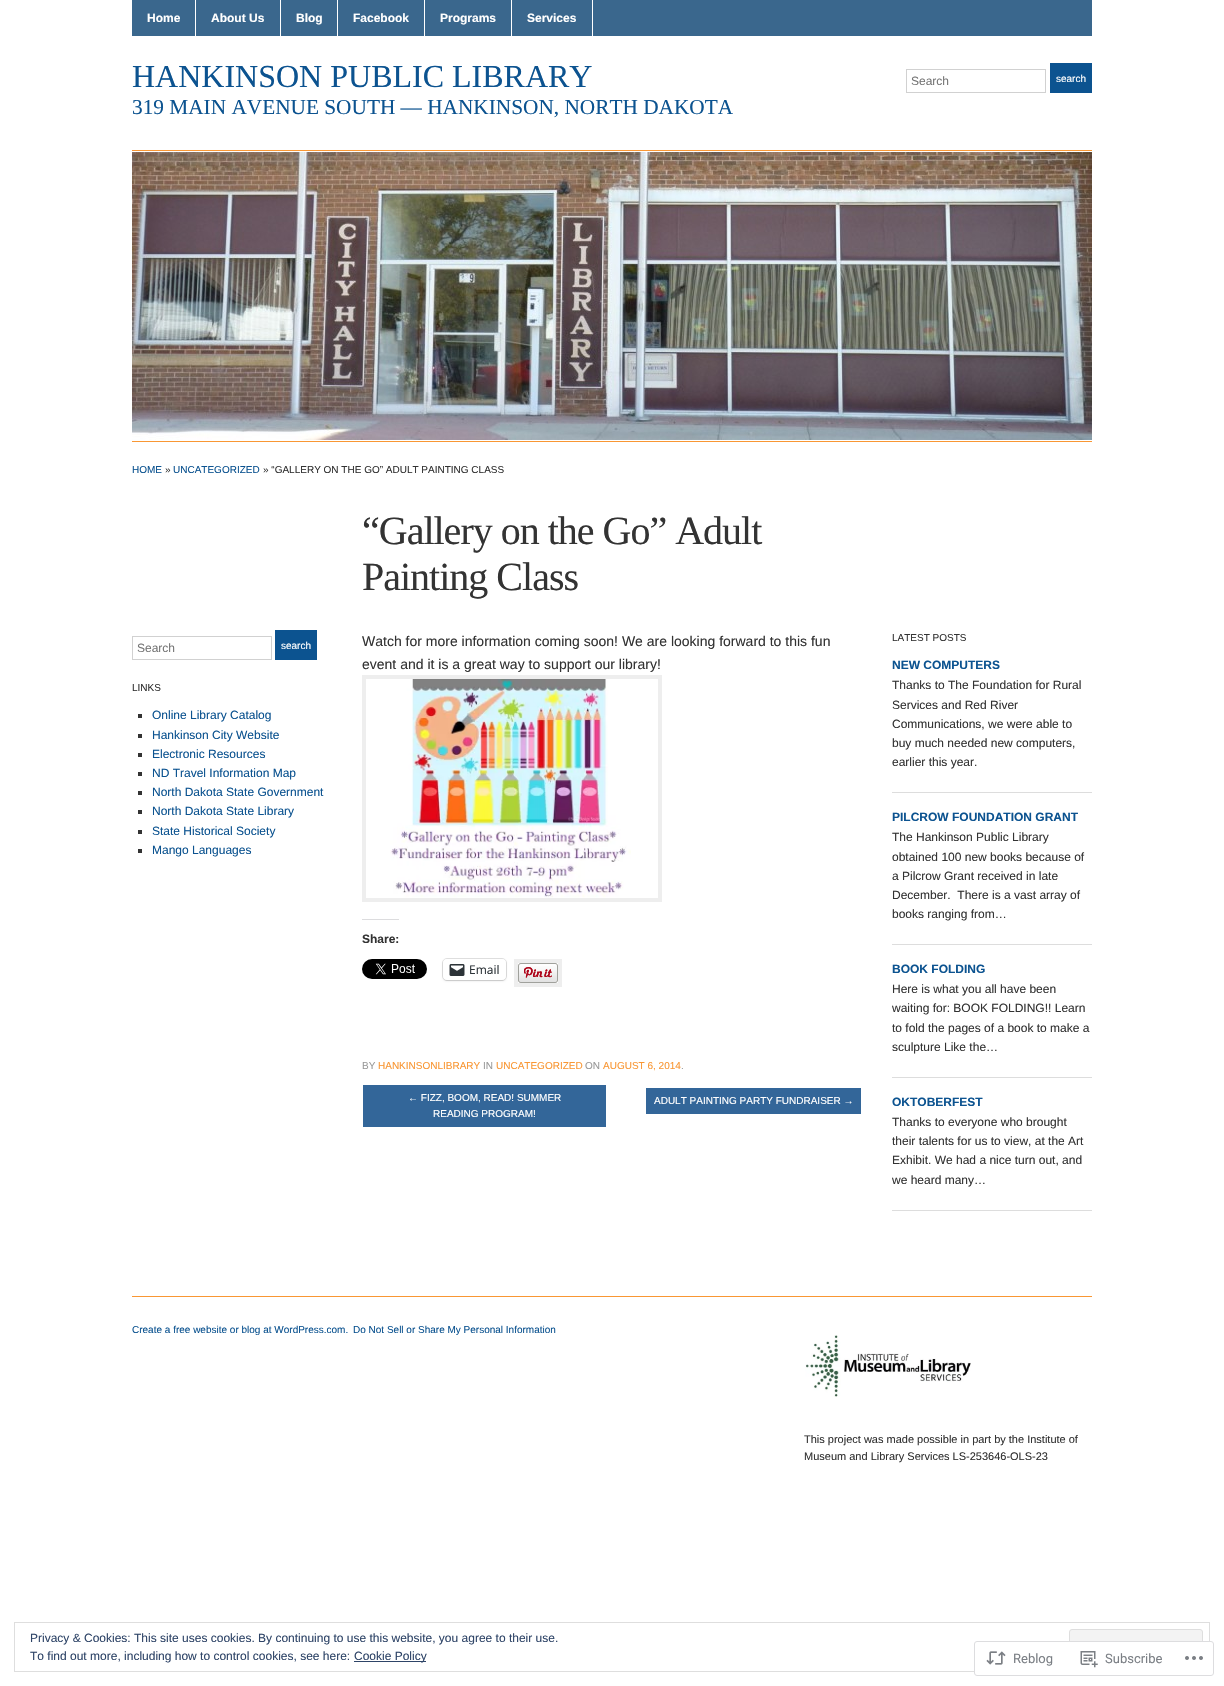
void draw(SkCanvas* canvas) {
	SkPaint paint;
	paint.setAntiAlias(true);
	auto spacedText = [&](const char* s, float x, float y, const SkFont& font, const SkPaint& ink, float letter, float word) {
		std::vector<SkGlyphID> glyphs(font.countText(s, strlen(s), SkTextEncoding::kUTF8));
		std::vector<float> xs(glyphs.size());
		font.textToGlyphs(s, strlen(s), SkTextEncoding::kUTF8, glyphs);
		font.getXPos(glyphs, xs, x);
		float extra = 0;
		for (size_t i = 0; i < glyphs.size(); i++) {
			xs[i] += extra;
			extra += letter + word * (glyphs[i] == font.unicharToGlyph(' '));
		}
		canvas->drawTextBlob(SkTextBlob::MakeFromPosHGlyphs(glyphs, xs, y, font), 0, 0, ink);
	};
	canvas->clear(0xffffffff);
	paint.setColor(0xff3a678d);
	canvas->drawRect(SkRect::MakeXYWH(132, 0, 960, 36), paint);
	paint.setColor(0xffffffff);
	canvas->drawRect(SkRect::MakeXYWH(195, 0, 1, 36), paint);
	SkFont f1(fontMgr->matchFamilyStyle("Liberation Sans", SkFontStyle::Bold()), 12);
	f1.setSubpixel(true);
	canvas->drawString("Home", 147, 22, f1, paint);
	canvas->drawRect(SkRect::MakeXYWH(280, 0, 1, 36), paint);
	canvas->drawString("About Us", 211, 22, f1, paint);
	canvas->drawRect(SkRect::MakeXYWH(337, 0, 1, 36), paint);
	canvas->drawString("Blog", 296, 22, f1, paint);
	canvas->drawRect(SkRect::MakeXYWH(424, 0, 1, 36), paint);
	canvas->drawString("Facebook", 353, 22, f1, paint);
	canvas->drawRect(SkRect::MakeXYWH(511, 0, 1, 36), paint);
	canvas->drawString("Programs", 440, 22, f1, paint);
	canvas->drawRect(SkRect::MakeXYWH(592, 0, 1, 36), paint);
	canvas->drawString("Services", 527, 22, f1, paint);
	SkFont f2(fontMgr->matchFamilyStyle("Liberation Serif", SkFontStyle::Normal()), 32);
	f2.setSubpixel(true);
	paint.setColor(0xff0c5390);
	canvas->drawString("HANKINSON PUBLIC LIBRARY", 132, 87, f2, paint);
	SkFont f3(fontMgr->matchFamilyStyle("Liberation Serif", SkFontStyle::Normal()), 21.3);
	f3.setSubpixel(true);
	canvas->drawString("319 MAIN AVENUE SOUTH — HANKINSON, NORTH DAKOTA", 132, 114, f3, paint);
	paint.setStroke(true);
	paint.setStrokeWidth(1);
	paint.setColor(0xffd1d1d1);
	canvas->drawRect(SkRect::MakeXYWH(906.5, 69.5, 139, 23), paint);
	SkFont f4(fontMgr->matchFamilyStyle("Liberation Sans", SkFontStyle::Normal()), 12);
	f4.setSubpixel(true);
	paint.setStroke(false);
	paint.setColor(0xff757575);
	canvas->drawString("Search", 911, 85, f4, paint);
	paint.setColor(0xff0c5390);
	canvas->drawRect(SkRect::MakeXYWH(1050, 63, 42, 30), paint);
	SkFont f5(fontMgr->matchFamilyStyle("Liberation Sans", SkFontStyle::Normal()), 10);
	f5.setSubpixel(true);
	paint.setColor(0xffffffff);
	canvas->drawString("search", 1056, 82, f5, paint);
	paint.setColor(0xfff99734);
	canvas->drawRect(SkRect::MakeXYWH(132, 150, 960, 1), paint);
	canvas->drawRect(SkRect::MakeXYWH(132, 441, 960, 1), paint);
	canvas->drawImageRect(SkImages::DeferredFromEncodedData(SkData::MakeFromFileName("img1.png")), SkRect::MakeXYWH(132, 152, 960, 288), SkSamplingOptions());
	paint.setColor(0xff0c5390);
	canvas->drawString("HOME", 132, 473, f5, paint);
	paint.setColor(0xff333333);
	canvas->drawString("»", 165, 473, f5, paint);
	paint.setColor(0xff0c5390);
	canvas->drawString("UNCATEGORIZED", 173, 473, f5, paint);
	paint.setColor(0xff333333);
	canvas->drawString("» “GALLERY ON THE GO” ADULT PAINTING CLASS", 263, 473, f5, paint);
	SkFont f6(fontMgr->matchFamilyStyle("Liberation Serif", SkFontStyle::Normal()), 40);
	f6.setSubpixel(true);
	spacedText("“Gallery on the Go” Adult", 362, 544, f6, paint, -1, 0);
	spacedText("Painting Class", 362, 590, f6, paint, -1, 0);
	paint.setStroke(true);
	paint.setColor(0xffd1d1d1);
	canvas->drawRect(SkRect::MakeXYWH(132.5, 636.5, 139, 23), paint);
	paint.setStroke(false);
	paint.setColor(0xff757575);
	canvas->drawString("Search", 137, 652, f4, paint);
	paint.setColor(0xff0c5390);
	canvas->drawRect(SkRect::MakeXYWH(275, 630, 42, 30), paint);
	paint.setColor(0xffffffff);
	canvas->drawString("search", 281, 649, f5, paint);
	paint.setColor(0xff333333);
	canvas->drawString("LINKS", 132, 691, f5, paint);
	canvas->drawRect(SkRect::MakeXYWH(138, 714, 4, 4), paint);
	paint.setColor(0xff0c5390);
	canvas->drawString("Online Library Catalog", 152, 719, f4, paint);
	paint.setColor(0xff333333);
	canvas->drawRect(SkRect::MakeXYWH(138, 734, 4, 4), paint);
	paint.setColor(0xff0c5390);
	canvas->drawString("Hankinson City Website", 152, 739, f4, paint);
	paint.setColor(0xff333333);
	canvas->drawRect(SkRect::MakeXYWH(138, 753, 4, 4), paint);
	paint.setColor(0xff0c5390);
	canvas->drawString("Electronic Resources", 152, 758, f4, paint);
	paint.setColor(0xff333333);
	canvas->drawRect(SkRect::MakeXYWH(138, 772, 4, 4), paint);
	paint.setColor(0xff0c5390);
	canvas->drawString("ND Travel Information Map", 152, 777, f4, paint);
	paint.setColor(0xff333333);
	canvas->drawRect(SkRect::MakeXYWH(138, 791, 4, 4), paint);
	paint.setColor(0xff0c5390);
	canvas->drawString("North Dakota State Government", 152, 796, f4, paint);
	paint.setColor(0xff333333);
	canvas->drawRect(SkRect::MakeXYWH(138, 810, 4, 4), paint);
	paint.setColor(0xff0c5390);
	canvas->drawString("North Dakota State Library", 152, 815, f4, paint);
	paint.setColor(0xff333333);
	canvas->drawRect(SkRect::MakeXYWH(138, 830, 4, 4), paint);
	paint.setColor(0xff0c5390);
	canvas->drawString("State Historical Society", 152, 835, f4, paint);
	paint.setColor(0xff333333);
	canvas->drawRect(SkRect::MakeXYWH(138, 849, 4, 4), paint);
	paint.setColor(0xff0c5390);
	canvas->drawString("Mango Languages", 152, 854, f4, paint);
	SkFont f7(fontMgr->matchFamilyStyle("Liberation Sans", SkFontStyle::Normal()), 14);
	f7.setSubpixel(true);
	paint.setColor(0xff333333);
	canvas->drawString("Watch for more information coming soon! We are looking forward to this fun", 362, 646, f7, paint);
	canvas->drawString("event and it is a great way to support our library!", 362, 669, f7, paint);
	paint.setStroke(true);
	paint.setStrokeWidth(4);
	paint.setColor(0xffeeeeee);
	canvas->drawRect(SkRect::MakeXYWH(364, 677, 296, 223), paint);
	canvas->drawImageRect(SkImages::DeferredFromEncodedData(SkData::MakeFromFileName("img2.png")), SkRect::MakeXYWH(390, 679, 241, 219), SkSamplingOptions());
	paint.setStroke(false);
	paint.setColor(0xffdcdcde);
	canvas->drawRect(SkRect::MakeXYWH(362, 919, 37, 1), paint);
	paint.setColor(0xff333333);
	canvas->drawString("Share:", 362, 943, f1, paint);
	canvas->drawImageRect(SkImages::DeferredFromEncodedData(SkData::MakeFromFileName("img3.png")), SkRect::MakeXYWH(362, 959, 65, 20), SkSamplingOptions());
	paint.setStroke(true);
	paint.setStrokeWidth(1);
	paint.setColor(0xffe0e0e0);
	canvas->drawRoundRect(SkRect::MakeXYWH(442.5, 958.5, 64, 22), 4.5, 4.5, paint);
	paint.setStroke(false);
	paint.setColor(0x1f000000);
	paint.setMaskFilter(SkMaskFilter::MakeBlur(kNormal_SkBlurStyle, 1));
	canvas->drawRoundRect(SkRect::MakeXYWH(443, 960, 63, 21), 4, 4, paint);
	paint.setMaskFilter(nullptr);
	paint.setColor(0xffffffff);
	canvas->drawRoundRect(SkRect::MakeXYWH(443, 959, 63, 21), 4, 4, paint);
	canvas->drawImageRect(SkImages::DeferredFromEncodedData(SkData::MakeFromFileName("img4.png")), SkRect::MakeXYWH(449, 964, 16, 12), SkSamplingOptions());
	SkFont f8(fontMgr->matchFamilyStyle("Open Sans", SkFontStyle::Normal()), 12);
	f8.setSubpixel(true);
	paint.setColor(0xff2c3338);
	canvas->drawString("Email", 469, 974, f8, paint);
	paint.setStroke(true);
	paint.setStrokeWidth(4);
	paint.setColor(0xffeeeeee);
	canvas->drawRect(SkRect::MakeXYWH(516, 961, 44, 24), paint);
	canvas->drawImageRect(SkImages::DeferredFromEncodedData(SkData::MakeFromFileName("img5.png")), SkRect::MakeXYWH(518, 963, 40, 20), SkSamplingOptions());
	paint.setStroke(false);
	paint.setColor(0xff999999);
	canvas->drawString("BY", 362, 1069, f5, paint);
	paint.setColor(0xfff99734);
	canvas->drawString("HANKINSONLIBRARY", 378, 1069, f5, paint);
	paint.setColor(0xff999999);
	canvas->drawString("IN", 483, 1069, f5, paint);
	paint.setColor(0xfff99734);
	canvas->drawString("UNCATEGORIZED", 496, 1069, f5, paint);
	paint.setColor(0xff999999);
	canvas->drawString("ON", 585, 1069, f5, paint);
	paint.setColor(0xfff99734);
	canvas->drawString("AUGUST 6, 2014", 603, 1069, f5, paint);
	paint.setColor(0xff999999);
	canvas->drawString(".", 681, 1069, f5, paint);
	paint.setColor(0xff336699);
	canvas->drawRect(SkRect::MakeXYWH(363, 1085, 243, 42), paint);
	paint.setColor(0xffffffff);
	canvas->drawString("← FIZZ, BOOM, READ! SUMMER", 408, 1101, f5, paint);
	canvas->drawString("READING PROGRAM!", 433, 1117, f5, paint);
	paint.setColor(0xff336699);
	canvas->drawRect(SkRect::MakeXYWH(646, 1088, 215, 26), paint);
	paint.setColor(0xffffffff);
	canvas->drawString("ADULT PAINTING PARTY FUNDRAISER →", 654, 1104, f5, paint);
	paint.setColor(0xff333333);
	canvas->drawString("LATEST POSTS", 892, 641, f5, paint);
	paint.setColor(0xffdddddd);
	canvas->drawRect(SkRect::MakeXYWH(892, 792, 200, 1), paint);
	paint.setColor(0xff0c5390);
	canvas->drawString("NEW COMPUTERS", 892, 669, f1, paint);
	paint.setColor(0xff333333);
	canvas->drawString("Thanks to The Foundation for Rural", 892, 689, f4, paint);
	canvas->drawString("Services and Red River", 892, 709, f4, paint);
	canvas->drawString("Communications, we were able to", 892, 728, f4, paint);
	canvas->drawString("buy much needed new computers,", 892, 747, f4, paint);
	canvas->drawString("earlier this year.", 892, 766, f4, paint);
	paint.setColor(0xffdddddd);
	canvas->drawRect(SkRect::MakeXYWH(892, 944, 200, 1), paint);
	paint.setColor(0xff0c5390);
	canvas->drawString("PILCROW FOUNDATION GRANT", 892, 821, f1, paint);
	paint.setColor(0xff333333);
	canvas->drawString("The Hankinson Public Library", 892, 841, f4, paint);
	canvas->drawString("obtained 100 new books because of", 892, 861, f4, paint);
	canvas->drawString("a Pilcrow Grant received in late", 892, 880, f4, paint);
	canvas->drawString("December.  There is a vast array of", 892, 899, f4, paint);
	canvas->drawString("books ranging from…", 892, 918, f4, paint);
	paint.setColor(0xffdddddd);
	canvas->drawRect(SkRect::MakeXYWH(892, 1077, 200, 1), paint);
	paint.setColor(0xff0c5390);
	canvas->drawString("BOOK FOLDING", 892, 973, f1, paint);
	paint.setColor(0xff333333);
	canvas->drawString("Here is what you all have been", 892, 993, f4, paint);
	canvas->drawString("waiting for: BOOK FOLDING!! Learn", 892, 1012, f4, paint);
	canvas->drawString("to fold the pages of a book to make a", 892, 1032, f4, paint);
	canvas->drawString("sculpture Like the…", 892, 1051, f4, paint);
	paint.setColor(0xffdddddd);
	canvas->drawRect(SkRect::MakeXYWH(892, 1210, 200, 1), paint);
	paint.setColor(0xff0c5390);
	canvas->drawString("OKTOBERFEST", 892, 1106, f1, paint);
	paint.setColor(0xff333333);
	canvas->drawString("Thanks to everyone who brought", 892, 1126, f4, paint);
	canvas->drawString("their talents for us to view, at the Art", 892, 1145, f4, paint);
	canvas->drawString("Exhibit. We had a nice turn out, and", 892, 1164, f4, paint);
	canvas->drawString("we heard many…", 892, 1184, f4, paint);
	paint.setColor(0xfff99734);
	canvas->drawRect(SkRect::MakeXYWH(132, 1296, 960, 1), paint);
	paint.setColor(0xff0c5390);
	canvas->drawString("Create a free website or blog at WordPress.com.", 132, 1333, f5, paint);
	canvas->drawString("Do Not Sell or Share My Personal Information", 353, 1333, f5, paint);
	canvas->drawImageRect(SkImages::DeferredFromEncodedData(SkData::MakeFromFileName("img6.png")), SkRect::MakeXYWH(805, 1335, 166, 62), SkSamplingOptions());
	SkFont f9(fontMgr->matchFamilyStyle("Liberation Sans", SkFontStyle::Normal()), 11);
	f9.setSubpixel(true);
	paint.setColor(0xff333333);
	canvas->drawString("This project was made possible in part by the Institute of", 804, 1443, f9, paint);
	canvas->drawString("Museum and Library Services LS-253646-OLS-23", 804, 1460, f9, paint);
	paint.setStroke(true);
	paint.setStrokeWidth(1);
	paint.setColor(0xffdedede);
	canvas->drawRect(SkRect::MakeXYWH(14.5, 1622.5, 1195, 49), paint);
	paint.setStroke(false);
	paint.setColor(0xff2e4467);
	canvas->drawString("Privacy & Cookies: This site uses cookies. By continuing to use this website, you agree to their use.", 30, 1642, f4, paint);
	paint.setColor(0xfff3f3f3);
	canvas->drawRoundRect(SkRect::MakeXYWH(1069.5, 1629.5, 133, 29), 2.5, 2.5, paint);
	paint.setStroke(true);
	paint.setColor(0xffdedede);
	canvas->drawRoundRect(SkRect::MakeXYWH(1069.5, 1629.5, 133, 29), 2.5, 2.5, paint);
	paint.setStroke(false);
	paint.setColor(0xff2e4467);
	canvas->drawString("To find out more, including how to control cookies, see here:", 30, 1660, f4, paint);
	canvas->drawRect(SkRect::MakeXYWH(354, 1661, 72, 1), paint);
	canvas->drawString("Cookie Policy", 354, 1660, f4, paint);
	paint.setColor(0xfaffffff);
	canvas->drawRoundRect(SkRect::MakeXYWH(974.5, 1641.5, 239, 34), 2.5, 2.5, paint);
	paint.setStroke(true);
	paint.setColor(0xffdddddf);
	canvas->drawRoundRect(SkRect::MakeXYWH(974.5, 1641.5, 239, 34), 2.5, 2.5, paint);
	canvas->drawImageRect(SkImages::DeferredFromEncodedData(SkData::MakeFromFileName("img7.png")), SkRect::MakeXYWH(986, 1651, 20, 14), SkSamplingOptions());
	SkFont f10(fontMgr->matchFamilyStyle("Roboto", SkFontStyle::Normal()), 13);
	f10.setSubpixel(true);
	paint.setStroke(false);
	paint.setColor(0xff7b7f85);
	canvas->drawString("Reblog", 1013, 1663, f10, paint);
	canvas->drawImageRect(SkImages::DeferredFromEncodedData(SkData::MakeFromFileName("img8.png")), SkRect::MakeXYWH(1080, 1651, 18, 17), SkSamplingOptions());
	canvas->drawString("Subscribe", 1105, 1663, f10, paint);
	canvas->drawImageRect(SkImages::DeferredFromEncodedData(SkData::MakeFromFileName("img9.png")), SkRect::MakeXYWH(1185, 1656, 18, 4), SkSamplingOptions());
}
